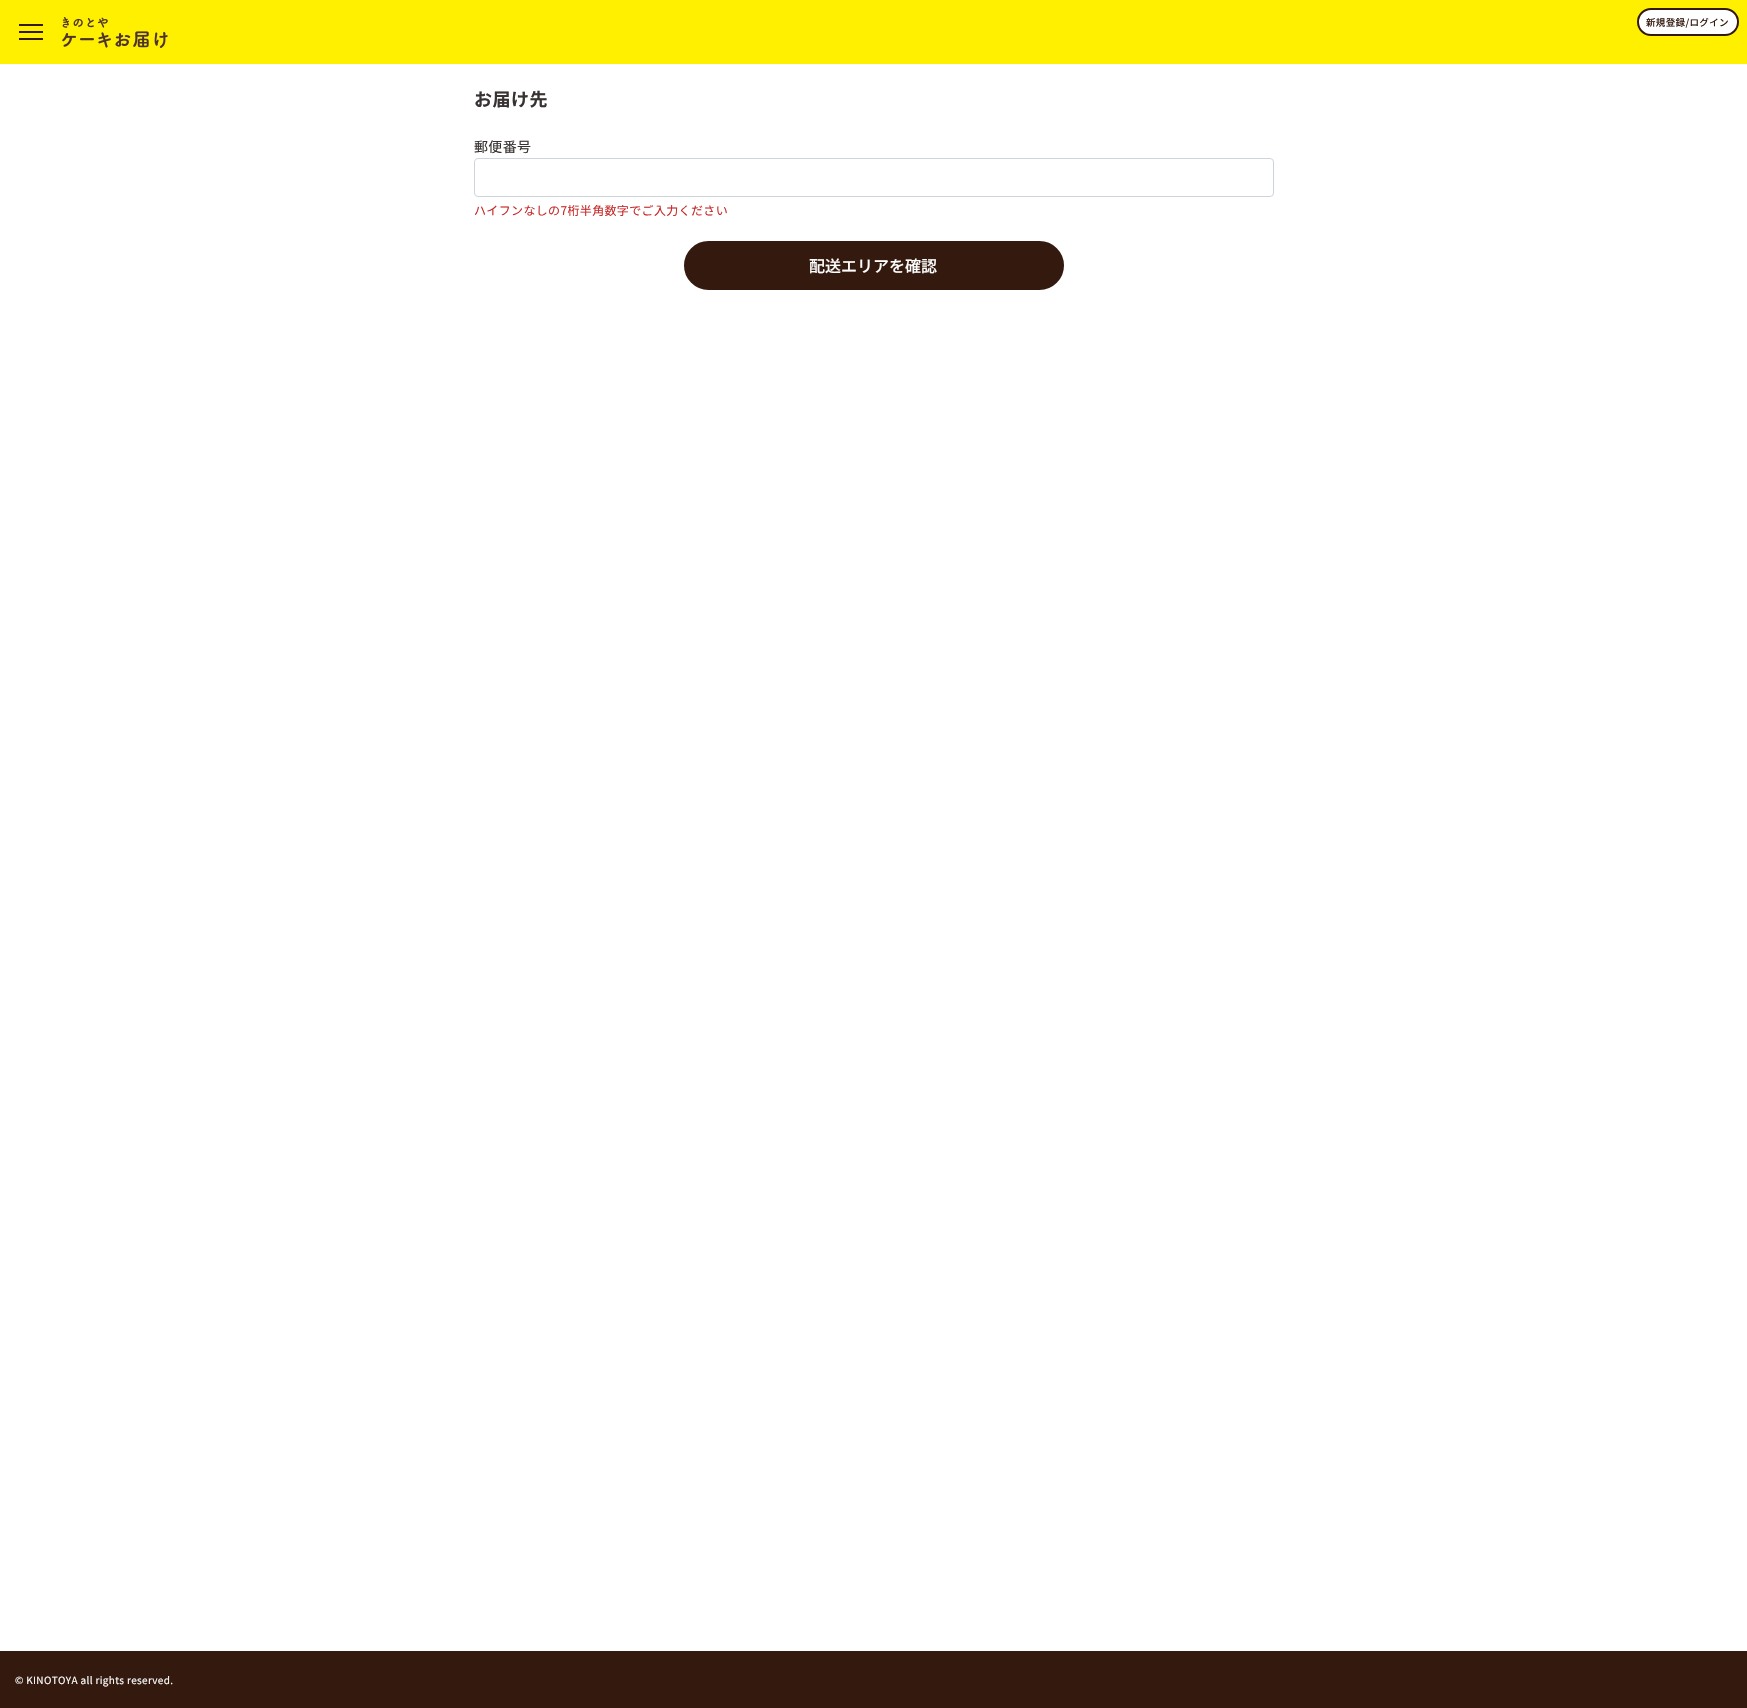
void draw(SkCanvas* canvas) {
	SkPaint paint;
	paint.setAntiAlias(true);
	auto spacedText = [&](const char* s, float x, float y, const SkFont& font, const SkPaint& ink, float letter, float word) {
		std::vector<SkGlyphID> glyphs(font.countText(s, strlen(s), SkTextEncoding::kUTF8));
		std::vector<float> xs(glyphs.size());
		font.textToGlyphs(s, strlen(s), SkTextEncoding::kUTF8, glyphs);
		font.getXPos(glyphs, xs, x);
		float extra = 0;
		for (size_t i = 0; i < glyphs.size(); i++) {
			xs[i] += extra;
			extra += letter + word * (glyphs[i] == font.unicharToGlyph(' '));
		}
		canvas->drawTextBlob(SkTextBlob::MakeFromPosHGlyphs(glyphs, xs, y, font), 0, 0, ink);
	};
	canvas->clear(0xffffffff);
	paint.setColor(0xfffff000);
	canvas->drawRect(SkRect::MakeXYWH(0, 0, 1747, 64), paint);
	canvas->drawImageRect(SkImages::DeferredFromEncodedData(SkData::MakeFromFileName("img1.png")), SkRect::MakeXYWH(62, 17, 106, 31), SkSamplingOptions());
	paint.setColor(0xffffffff);
	canvas->drawRoundRect(SkRect::MakeXYWH(1638, 9, 100, 26), 13, 13, paint);
	paint.setStroke(true);
	paint.setStrokeWidth(2);
	paint.setColor(0xff33190e);
	canvas->drawRoundRect(SkRect::MakeXYWH(1638, 9, 100, 26), 13, 13, paint);
	SkFont f1(fontMgr->matchFamilyStyle("Noto Sans JP", SkFontStyle(500, SkFontStyle::kNormal_Width, SkFontStyle::kUpright_Slant)), 9.5);
	f1.setSubpixel(true);
	paint.setStroke(false);
	spacedText("新規登録/ログイン", 1646, 26, f1, paint, 0.35, 0);
	canvas->drawRect(SkRect::MakeXYWH(19, 24, 24, 2), paint);
	canvas->drawRect(SkRect::MakeXYWH(19, 31, 24, 2), paint);
	canvas->drawRect(SkRect::MakeXYWH(19, 38, 24, 2), paint);
	SkFont f2(fontMgr->matchFamilyStyle("Noto Sans JP", SkFontStyle::Bold()), 18);
	f2.setSubpixel(true);
	paint.setColor(0xff383232);
	spacedText("お届け先", 474, 106, f2, paint, 0.5, 0);
	SkFont f3(fontMgr->matchFamilyStyle("Noto Sans JP", SkFontStyle::Normal()), 14);
	f3.setSubpixel(true);
	spacedText("郵便番号", 474, 152, f3, paint, 0.35, 0);
	paint.setStroke(true);
	paint.setStrokeWidth(1);
	paint.setColor(0xffced4da);
	canvas->drawRoundRect(SkRect::MakeXYWH(474.5, 158.5, 799, 38), 3.5, 3.5, paint);
	SkFont f4(fontMgr->matchFamilyStyle("Noto Sans JP", SkFontStyle::Normal()), 12);
	f4.setSubpixel(true);
	paint.setStroke(false);
	paint.setColor(0xffc62828);
	spacedText("ハイフンなしの7桁半角数字でご入力ください", 474, 215, f4, paint, 0.35, 0);
	paint.setColor(0xff33190e);
	canvas->drawRoundRect(SkRect::MakeXYWH(685, 242, 378, 47), 23.5, 23.5, paint);
	paint.setStroke(true);
	paint.setStrokeWidth(2);
	canvas->drawRoundRect(SkRect::MakeXYWH(685, 242, 378, 47), 23.5, 23.5, paint);
	SkFont f5(fontMgr->matchFamilyStyle("Noto Sans JP", SkFontStyle(500, SkFontStyle::kNormal_Width, SkFontStyle::kUpright_Slant)), 16);
	f5.setSubpixel(true);
	paint.setStroke(false);
	paint.setColor(0xffffffff);
	canvas->drawString("配送エリアを確認", 809, 272, f5, paint);
	paint.setColor(0xff33190e);
	canvas->drawRect(SkRect::MakeXYWH(0, 1651, 1747, 57), paint);
	SkFont f6(fontMgr->matchFamilyStyle("Noto Sans JP", SkFontStyle::Normal()), 10);
	f6.setSubpixel(true);
	paint.setColor(0xffffffff);
	spacedText("© KINOTOYA all rights reserved.", 15, 1684, f6, paint, 0.35, 0);
}
